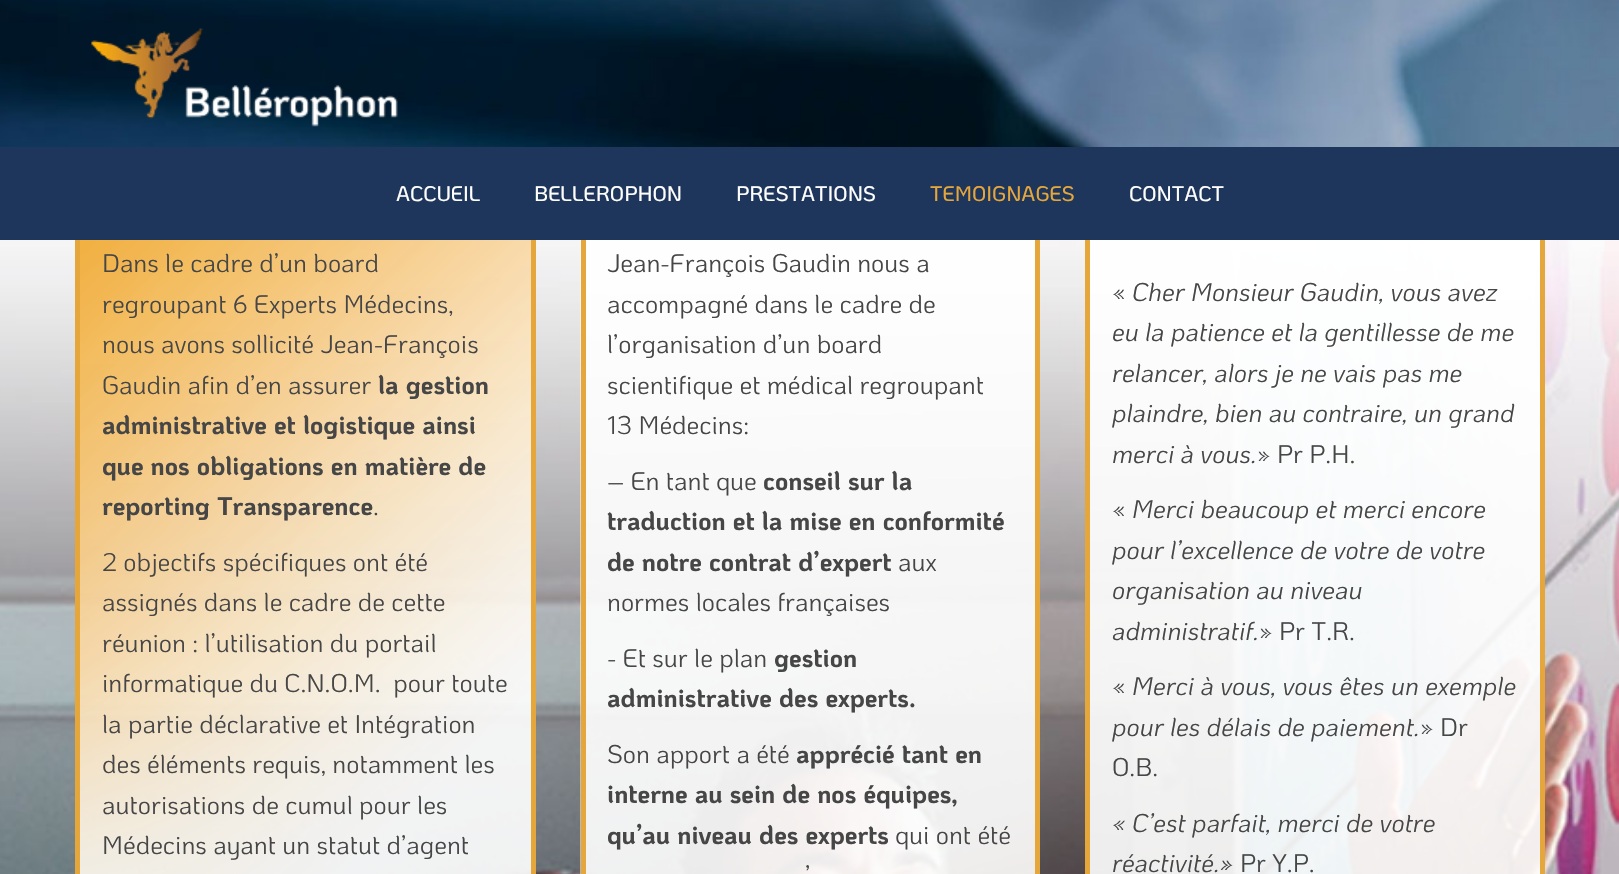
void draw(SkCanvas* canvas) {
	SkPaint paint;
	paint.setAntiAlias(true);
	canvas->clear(0xffffffff);
	canvas->drawImageRect(SkImages::DeferredFromEncodedData(SkData::MakeFromFileName("img1.png")), SkRect::MakeXYWH(0, 0, 1619, 147), SkSamplingOptions());
	canvas->drawImageRect(SkImages::DeferredFromEncodedData(SkData::MakeFromFileName("img2.png")), SkRect::MakeXYWH(91, 28, 307, 99), SkSamplingOptions());
	canvas->drawImageRect(SkImages::DeferredFromEncodedData(SkData::MakeFromFileName("img3.png")), SkRect::MakeXYWH(0, 240, 1619, 634), SkSamplingOptions());
	canvas->drawImageRect(SkImages::DeferredFromEncodedData(SkData::MakeFromFileName("img4.png")), SkRect::MakeXYWH(80, 240, 451, 634), SkSamplingOptions());
	paint.setStroke(true);
	paint.setStrokeWidth(5);
	paint.setColor(0xffe5a63c);
	canvas->drawRect(SkRect::MakeXYWH(77.5, 181.5, 456, 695), paint);
	canvas->drawImageRect(SkImages::DeferredFromEncodedData(SkData::MakeFromFileName("img5.png")), SkRect::MakeXYWH(580, 240, 455, 634), SkSamplingOptions());
	canvas->drawRect(SkRect::MakeXYWH(583.5, 181.5, 454, 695), paint);
	paint.setStroke(false);
	paint.setColor(0xe6ffffff);
	canvas->drawRect(SkRect::MakeXYWH(1090, 240, 450, 634), paint);
	paint.setStroke(true);
	paint.setColor(0xffe5a63c);
	canvas->drawRect(SkRect::MakeXYWH(1087.5, 181.5, 455, 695), paint);
	paint.setStroke(false);
	paint.setColor(0xff1e365b);
	canvas->drawRect(SkRect::MakeXYWH(0, 147, 1619, 93), paint);
	SkFont f1(fontMgr->matchFamilyStyle("KoHo", SkFontStyle(500, SkFontStyle::kNormal_Width, SkFontStyle::kUpright_Slant)), 21);
	f1.setSubpixel(true);
	paint.setColor(0xffffffff);
	canvas->drawString("ACCUEIL", 396, 201, f1, paint);
	canvas->drawString("BELLEROPHON", 534, 201, f1, paint);
	canvas->drawString("PRESTATIONS", 736, 201, f1, paint);
	paint.setColor(0xffe5a63c);
	canvas->drawString("TEMOIGNAGES", 930, 201, f1, paint);
	paint.setColor(0xffffffff);
	canvas->drawString("CONTACT", 1129, 201, f1, paint);
	SkFont f2(fontMgr->matchFamilyStyle("KoHo", SkFontStyle::Normal()), 25.5);
	f2.setSubpixel(true);
	paint.setColor(0xff464646);
	canvas->drawString("Dans le cadre d’un board", 102, 272, f2, paint);
	canvas->drawString("regroupant 6 Experts Médecins,", 102, 313, f2, paint);
	canvas->drawString("nous avons sollicité Jean-François", 102, 353, f2, paint);
	canvas->drawString("Gaudin afin d’en assurer", 102, 394, f2, paint);
	SkFont f3(fontMgr->matchFamilyStyle("KoHo", SkFontStyle::Bold()), 25.5);
	f3.setSubpixel(true);
	canvas->drawString("la gestion", 378, 394, f3, paint);
	canvas->drawString("administrative et logistique ainsi", 102, 434, f3, paint);
	canvas->drawString("que nos obligations en matière de", 102, 475, f3, paint);
	canvas->drawString("reporting Transparence", 102, 515, f3, paint);
	canvas->drawString(".", 373, 515, f2, paint);
	canvas->drawString("2 objectifs spécifiques ont été", 102, 571, f2, paint);
	canvas->drawString("assignés dans le cadre de cette", 102, 611, f2, paint);
	canvas->drawString("réunion : l’utilisation du portail", 102, 652, f2, paint);
	canvas->drawString("informatique du C.N.O.M.  pour toute", 102, 692, f2, paint);
	canvas->drawString("la partie déclarative et Intégration", 102, 733, f2, paint);
	canvas->drawString("des éléments requis, notamment les", 102, 773, f2, paint);
	canvas->drawString("autorisations de cumul pour les", 102, 814, f2, paint);
	canvas->drawString("Médecins ayant un statut d’agent", 102, 854, f2, paint);
	canvas->drawString("Jean-François Gaudin nous a", 607, 272, f2, paint);
	canvas->drawString("accompagné dans le cadre de", 607, 313, f2, paint);
	canvas->drawString("l’organisation d’un board", 607, 353, f2, paint);
	canvas->drawString("scientifique et médical regroupant", 607, 394, f2, paint);
	canvas->drawString("13 Médecins:", 607, 434, f2, paint);
	canvas->drawString("– En tant que", 607, 490, f2, paint);
	canvas->drawString("conseil sur la", 763, 490, f3, paint);
	canvas->drawString("traduction et la mise en conformité", 607, 530, f3, paint);
	canvas->drawString("de notre contrat d’expert", 607, 571, f3, paint);
	canvas->drawString("aux", 898, 571, f2, paint);
	canvas->drawString("normes locales françaises", 607, 611, f2, paint);
	canvas->drawString("- Et sur le plan", 607, 667, f2, paint);
	canvas->drawString("gestion", 774, 667, f3, paint);
	canvas->drawString("administrative des experts.", 607, 707, f3, paint);
	canvas->drawString("Son apport a été", 607, 763, f2, paint);
	canvas->drawString("apprécié tant en", 796, 763, f3, paint);
	canvas->drawString("interne au sein de nos équipes,", 607, 803, f3, paint);
	canvas->drawString("qu’au niveau des experts", 607, 844, f3, paint);
	canvas->drawString("qui ont été", 895, 844, f2, paint);
	canvas->drawString("’", 805, 884, f2, paint);
	canvas->drawString("«", 1112, 301, f2, paint);
	SkFont f4(fontMgr->matchFamilyStyle("KoHo", SkFontStyle::Italic()), 25.5);
	f4.setSubpixel(true);
	canvas->drawString("Cher Monsieur Gaudin, vous avez", 1132, 301, f4, paint);
	canvas->drawString("eu la patience et la gentillesse de me", 1112, 341, f4, paint);
	canvas->drawString("relancer, alors je ne vais pas me", 1112, 382, f4, paint);
	canvas->drawString("plaindre, bien au contraire, un grand", 1112, 422, f4, paint);
	canvas->drawString("merci à vous.", 1112, 463, f4, paint);
	canvas->drawString("» Pr P.H.", 1257, 463, f2, paint);
	canvas->drawString("«", 1112, 518, f2, paint);
	canvas->drawString("Merci beaucoup et merci encore", 1132, 518, f4, paint);
	canvas->drawString("pour l’excellence de votre de votre", 1112, 559, f4, paint);
	canvas->drawString("organisation au niveau", 1112, 599, f4, paint);
	canvas->drawString("administratif.", 1112, 640, f4, paint);
	canvas->drawString("» Pr T.R.", 1259, 640, f2, paint);
	canvas->drawString("«", 1112, 695, f2, paint);
	canvas->drawString("Merci à vous, vous êtes un exemple", 1132, 695, f4, paint);
	canvas->drawString("pour les délais de paiement.", 1112, 736, f4, paint);
	canvas->drawString("» Dr", 1420, 736, f2, paint);
	canvas->drawString("O.B.", 1112, 776, f2, paint);
	canvas->drawString("« C’est parfait, merci de votre", 1112, 832, f4, paint);
	canvas->drawString("réactivité.»", 1112, 872, f4, paint);
	canvas->drawString("Pr Y.P.", 1240, 872, f2, paint);
}
